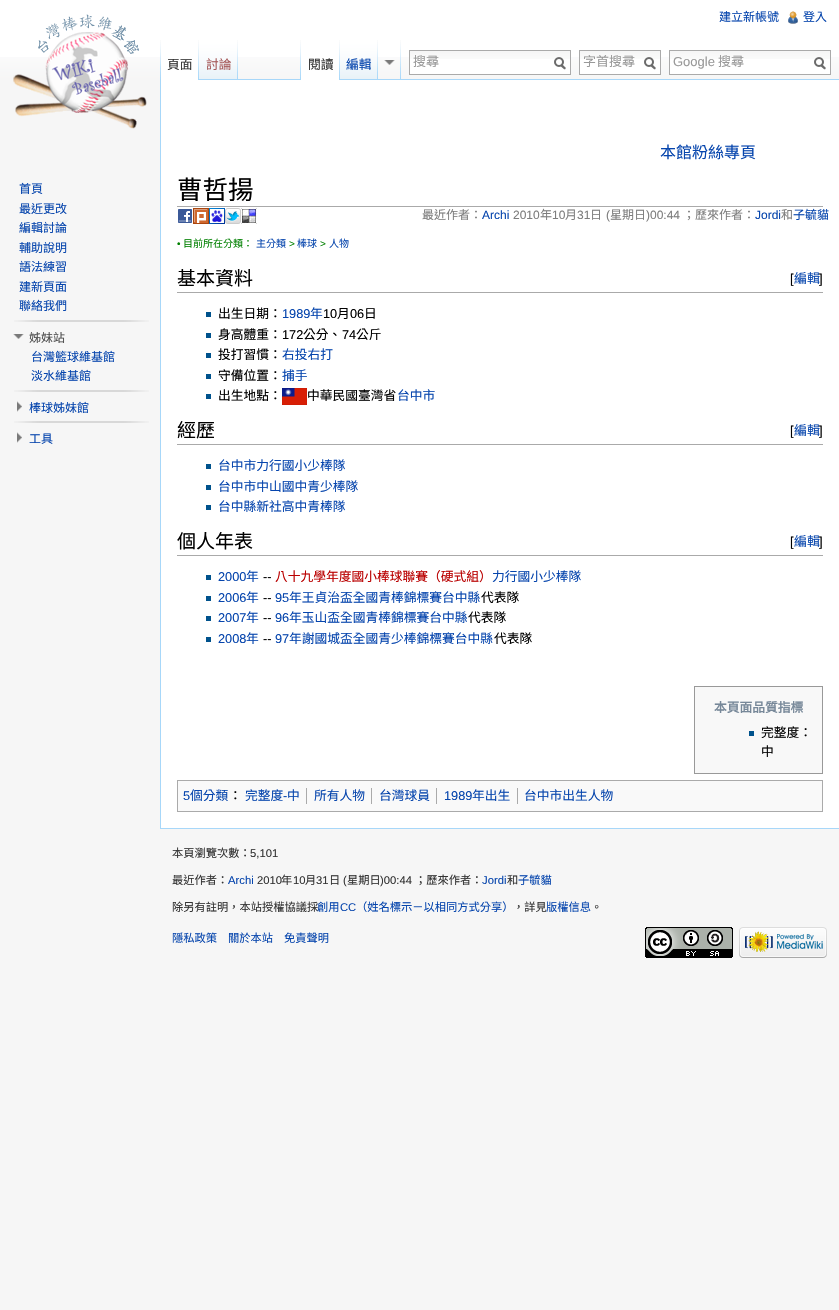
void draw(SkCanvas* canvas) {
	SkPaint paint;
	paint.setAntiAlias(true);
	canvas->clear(0xfff6f6f6);
	paint.setColor(0xffffffff);
	canvas->drawRect(SkRect::MakeXYWH(0, 0, 839, 57), paint);
	canvas->drawImageRect(SkImages::DeferredFromEncodedData(SkData::MakeFromFileName("img1.png")), SkRect::MakeXYWH(0, 57, 839, 23), SkSamplingOptions());
	SkFont f1(fontMgr->matchFamilyStyle("Noto Sans CJK TC", SkFontStyle::Normal()), 12);
	f1.setSubpixel(true);
	paint.setColor(0xff0645ad);
	canvas->drawString("建立新帳號", 719, 21, f1, paint);
	canvas->drawImageRect(SkImages::DeferredFromEncodedData(SkData::MakeFromFileName("img2.png")), SkRect::MakeXYWH(788, 11, 10, 13), SkSamplingOptions());
	canvas->drawString("登入", 803, 21, f1, paint);
	canvas->drawImageRect(SkImages::DeferredFromEncodedData(SkData::MakeFromFileName("img3.png")), SkRect::MakeXYWH(160, 40, 1, 39), SkSamplingOptions());
	paint.setColor(0xffffffff);
	canvas->drawRect(SkRect::MakeXYWH(161, 57, 37, 23), paint);
	canvas->drawImageRect(SkImages::DeferredFromEncodedData(SkData::MakeFromFileName("img4.png")), SkRect::MakeXYWH(198, 40, 1, 40), SkSamplingOptions());
	SkFont f2(fontMgr->matchFamilyStyle("Noto Sans CJK TC", SkFontStyle::Normal()), 12.75);
	f2.setSubpixel(true);
	paint.setColor(0xff333333);
	canvas->drawString("頁面", 167, 69, f2, paint);
	canvas->drawImageRect(SkImages::DeferredFromEncodedData(SkData::MakeFromFileName("img5.png")), SkRect::MakeXYWH(199, 40, 39, 40), SkSamplingOptions());
	canvas->drawImageRect(SkImages::DeferredFromEncodedData(SkData::MakeFromFileName("img6.png")), SkRect::MakeXYWH(237, 40, 1, 39), SkSamplingOptions());
	paint.setColor(0xffa55858);
	canvas->drawString("討論", 206, 69, f2, paint);
	canvas->drawImageRect(SkImages::DeferredFromEncodedData(SkData::MakeFromFileName("img3.png")), SkRect::MakeXYWH(300, 40, 1, 39), SkSamplingOptions());
	paint.setColor(0xffa7d7f9);
	canvas->drawRect(SkRect::MakeXYWH(238, 79, 601, 1), paint);
	paint.setColor(0xffffffff);
	canvas->drawRect(SkRect::MakeXYWH(301, 57, 38, 23), paint);
	canvas->drawImageRect(SkImages::DeferredFromEncodedData(SkData::MakeFromFileName("img4.png")), SkRect::MakeXYWH(339, 40, 1, 40), SkSamplingOptions());
	paint.setColor(0xff333333);
	canvas->drawString("閱讀", 308, 69, f2, paint);
	canvas->drawImageRect(SkImages::DeferredFromEncodedData(SkData::MakeFromFileName("img7.png")), SkRect::MakeXYWH(340, 40, 38, 40), SkSamplingOptions());
	canvas->drawImageRect(SkImages::DeferredFromEncodedData(SkData::MakeFromFileName("img6.png")), SkRect::MakeXYWH(377, 40, 1, 39), SkSamplingOptions());
	paint.setColor(0xff0645ad);
	canvas->drawString("編輯", 346, 69, f2, paint);
	canvas->drawImageRect(SkImages::DeferredFromEncodedData(SkData::MakeFromFileName("img8.png")), SkRect::MakeXYWH(384, 60, 11, 5), SkSamplingOptions());
	canvas->drawImageRect(SkImages::DeferredFromEncodedData(SkData::MakeFromFileName("img6.png")), SkRect::MakeXYWH(400, 40, 1, 39), SkSamplingOptions());
	paint.setColor(0xffffffff);
	canvas->drawRect(SkRect::MakeXYWH(410, 59, 160, 15), paint);
	canvas->drawImageRect(SkImages::DeferredFromEncodedData(SkData::MakeFromFileName("img9.png")), SkRect::MakeXYWH(410, 51, 160, 8), SkSamplingOptions());
	paint.setStroke(true);
	paint.setStrokeWidth(1);
	paint.setColor(0xffaaaaaa);
	canvas->drawRect(SkRect::MakeXYWH(409.5, 50.5, 161, 24), paint);
	SkFont f3(fontMgr->matchFamilyStyle("Noto Sans CJK TC", SkFontStyle::Normal()), 13);
	f3.setSubpixel(true);
	paint.setStroke(false);
	paint.setColor(0xff999999);
	canvas->drawString("搜尋", 413, 66, f3, paint);
	canvas->drawImageRect(SkImages::DeferredFromEncodedData(SkData::MakeFromFileName("img10.png")), SkRect::MakeXYWH(554, 57, 12, 13), SkSamplingOptions());
	paint.setColor(0xffffffff);
	canvas->drawRect(SkRect::MakeXYWH(580, 59, 80, 15), paint);
	canvas->drawImageRect(SkImages::DeferredFromEncodedData(SkData::MakeFromFileName("img11.png")), SkRect::MakeXYWH(580, 51, 80, 8), SkSamplingOptions());
	paint.setStroke(true);
	paint.setColor(0xffaaaaaa);
	canvas->drawRect(SkRect::MakeXYWH(579.5, 50.5, 81, 24), paint);
	paint.setStroke(false);
	paint.setColor(0xff999999);
	canvas->drawString("字首搜尋", 583, 66, f3, paint);
	canvas->drawImageRect(SkImages::DeferredFromEncodedData(SkData::MakeFromFileName("img10.png")), SkRect::MakeXYWH(644, 57, 12, 13), SkSamplingOptions());
	paint.setColor(0xffffffff);
	canvas->drawRect(SkRect::MakeXYWH(670, 59, 160, 15), paint);
	canvas->drawImageRect(SkImages::DeferredFromEncodedData(SkData::MakeFromFileName("img9.png")), SkRect::MakeXYWH(670, 51, 160, 8), SkSamplingOptions());
	paint.setStroke(true);
	paint.setColor(0xffaaaaaa);
	canvas->drawRect(SkRect::MakeXYWH(669.5, 50.5, 161, 24), paint);
	SkFont f4(fontMgr->matchFamilyStyle("Liberation Sans", SkFontStyle::Normal()), 13);
	f4.setSubpixel(true);
	paint.setStroke(false);
	paint.setColor(0xff999999);
	canvas->drawString("Google", 673, 66, f4, paint);
	canvas->drawString("搜尋", 718, 66, f3, paint);
	canvas->drawImageRect(SkImages::DeferredFromEncodedData(SkData::MakeFromFileName("img10.png")), SkRect::MakeXYWH(814, 57, 12, 13), SkSamplingOptions());
	canvas->drawImageRect(SkImages::DeferredFromEncodedData(SkData::MakeFromFileName("img12.png")), SkRect::MakeXYWH(13, 14, 134, 115), SkSamplingOptions());
	paint.setColor(0xff0645ad);
	canvas->drawString("首頁", 19, 193, f1, paint);
	canvas->drawString("最近更改", 19, 213, f1, paint);
	canvas->drawString("編輯討論", 19, 232, f1, paint);
	canvas->drawString("輔助說明", 19, 252, f1, paint);
	canvas->drawString("語法練習", 19, 271, f1, paint);
	canvas->drawString("建新頁面", 19, 291, f1, paint);
	canvas->drawString("聯絡我們", 19, 310, f1, paint);
	canvas->drawImageRect(SkImages::DeferredFromEncodedData(SkData::MakeFromFileName("img13.png")), SkRect::MakeXYWH(14, 320, 135, 2), SkSamplingOptions());
	canvas->drawImageRect(SkImages::DeferredFromEncodedData(SkData::MakeFromFileName("img14.png")), SkRect::MakeXYWH(13, 334, 11, 5), SkSamplingOptions());
	paint.setColor(0xff4d4d4d);
	canvas->drawString("姊妹站", 29, 342, f1, paint);
	paint.setColor(0xff0645ad);
	canvas->drawString("台灣籃球維基館", 31, 361, f1, paint);
	canvas->drawString("淡水維基館", 31, 380, f1, paint);
	canvas->drawImageRect(SkImages::DeferredFromEncodedData(SkData::MakeFromFileName("img13.png")), SkRect::MakeXYWH(14, 390, 135, 2), SkSamplingOptions());
	canvas->drawImageRect(SkImages::DeferredFromEncodedData(SkData::MakeFromFileName("img15.png")), SkRect::MakeXYWH(17, 401, 5, 11), SkSamplingOptions());
	canvas->drawString("棒球姊妹館", 29, 412, f1, paint);
	canvas->drawImageRect(SkImages::DeferredFromEncodedData(SkData::MakeFromFileName("img13.png")), SkRect::MakeXYWH(14, 421, 135, 2), SkSamplingOptions());
	canvas->drawImageRect(SkImages::DeferredFromEncodedData(SkData::MakeFromFileName("img15.png")), SkRect::MakeXYWH(17, 432, 5, 11), SkSamplingOptions());
	canvas->drawString("工具", 29, 443, f1, paint);
	paint.setColor(0xffffffff);
	canvas->drawRect(SkRect::MakeXYWH(161, 80, 678, 748), paint);
	paint.setColor(0xffa7d7f9);
	canvas->drawRect(SkRect::MakeXYWH(160, 828, 679, 1), paint);
	canvas->drawRect(SkRect::MakeXYWH(160, 79, 1, 750), paint);
	SkFont f5(fontMgr->matchFamilyStyle("Noto Sans CJK TC", SkFontStyle::Normal()), 16);
	f5.setSubpixel(true);
	paint.setColor(0xff0645ad);
	canvas->drawString("本館粉絲專頁", 660, 158, f5, paint);
	paint.setColor(0xffaaaaaa);
	canvas->drawRect(SkRect::MakeXYWH(177, 206, 646, 1), paint);
	SkFont f6(fontMgr->matchFamilyStyle("Noto Sans CJK TC", SkFontStyle::Normal()), 25.5);
	f6.setSubpixel(true);
	paint.setColor(0xff000000);
	canvas->drawString("曹哲揚", 177, 199, f6, paint);
	canvas->drawImageRect(SkImages::DeferredFromEncodedData(SkData::MakeFromFileName("img16.png")), SkRect::MakeXYWH(178, 209, 14, 14), SkSamplingOptions());
	canvas->drawImageRect(SkImages::DeferredFromEncodedData(SkData::MakeFromFileName("img17.png")), SkRect::MakeXYWH(193, 208, 16, 16), SkSamplingOptions());
	canvas->drawImageRect(SkImages::DeferredFromEncodedData(SkData::MakeFromFileName("img18.png")), SkRect::MakeXYWH(209, 208, 16, 16), SkSamplingOptions());
	canvas->drawImageRect(SkImages::DeferredFromEncodedData(SkData::MakeFromFileName("img19.png")), SkRect::MakeXYWH(225, 208, 16, 16), SkSamplingOptions());
	canvas->drawImageRect(SkImages::DeferredFromEncodedData(SkData::MakeFromFileName("img20.png")), SkRect::MakeXYWH(241, 208, 16, 16), SkSamplingOptions());
	paint.setColor(0xff7d7d7d);
	canvas->drawString("最近作者：", 422, 219, f1, paint);
	SkFont f7(fontMgr->matchFamilyStyle("Liberation Sans", SkFontStyle::Normal()), 12);
	f7.setSubpixel(true);
	paint.setColor(0xff0645ad);
	canvas->drawString("Archi", 482, 219, f7, paint);
	paint.setColor(0xff7d7d7d);
	canvas->drawString("2010", 513, 219, f7, paint);
	canvas->drawString("年", 540, 219, f1, paint);
	canvas->drawString("10", 552, 219, f7, paint);
	canvas->drawString("月", 565, 219, f1, paint);
	canvas->drawString("31", 577, 219, f7, paint);
	canvas->drawString("日", 590, 219, f1, paint);
	canvas->drawString("(", 606, 219, f7, paint);
	canvas->drawString("星期日", 610, 219, f1, paint);
	canvas->drawString(")00:44", 646, 219, f7, paint);
	canvas->drawString("；歷來作者：", 683, 219, f1, paint);
	paint.setColor(0xff0645ad);
	canvas->drawString("Jordi", 755, 219, f7, paint);
	paint.setColor(0xff7d7d7d);
	canvas->drawString("和", 781, 219, f1, paint);
	paint.setColor(0xff0645ad);
	canvas->drawString("子毓貓", 793, 219, f1, paint);
	SkFont f8(fontMgr->matchFamilyStyle("Liberation Sans", SkFontStyle::Normal()), 10);
	f8.setSubpixel(true);
	paint.setColor(0xff008000);
	canvas->drawString("•", 177, 247, f8, paint);
	SkFont f9(fontMgr->matchFamilyStyle("Noto Sans CJK TC", SkFontStyle::Normal()), 10);
	f9.setSubpixel(true);
	canvas->drawString("目前所在分類：", 183, 247, f9, paint);
	paint.setColor(0xff0645ad);
	canvas->drawString("主分類", 256, 247, f9, paint);
	paint.setColor(0xff008000);
	canvas->drawString(">", 289, 247, f8, paint);
	paint.setColor(0xff0645ad);
	canvas->drawString("棒球", 297, 247, f9, paint);
	paint.setColor(0xff008000);
	canvas->drawString(">", 320, 247, f8, paint);
	paint.setColor(0xff0645ad);
	canvas->drawString("人物", 329, 247, f9, paint);
	paint.setColor(0xffaaaaaa);
	canvas->drawRect(SkRect::MakeXYWH(177, 292, 646, 1), paint);
	SkFont f10(fontMgr->matchFamilyStyle("Noto Sans CJK TC", SkFontStyle::Normal()), 19);
	f10.setSubpixel(true);
	paint.setColor(0xff000000);
	canvas->drawString("基本資料", 177, 285, f10, paint);
	canvas->drawString("[", 790, 283, f4, paint);
	paint.setColor(0xff0645ad);
	canvas->drawString("編輯", 794, 283, f3, paint);
	paint.setColor(0xff000000);
	canvas->drawString("]", 819, 283, f4, paint);
	paint.setColor(0xff00528c);
	canvas->drawRect(SkRect::MakeXYWH(206, 312, 5, 5), paint);
	paint.setColor(0xff000000);
	canvas->drawString("出生日期：", 218, 318, f2, paint);
	SkFont f11(fontMgr->matchFamilyStyle("Liberation Sans", SkFontStyle::Normal()), 12.75);
	f11.setSubpixel(true);
	paint.setColor(0xff0645ad);
	canvas->drawString("1989", 282, 318, f11, paint);
	canvas->drawString("年", 310, 318, f2, paint);
	paint.setColor(0xff000000);
	canvas->drawString("10", 323, 318, f11, paint);
	canvas->drawString("月", 337, 318, f2, paint);
	canvas->drawString("06", 350, 318, f11, paint);
	canvas->drawString("日", 364, 318, f2, paint);
	paint.setColor(0xff00528c);
	canvas->drawRect(SkRect::MakeXYWH(206, 333, 5, 5), paint);
	paint.setColor(0xff000000);
	canvas->drawString("身高體重：", 218, 339, f2, paint);
	canvas->drawString("172", 282, 339, f11, paint);
	canvas->drawString("公分、", 303, 339, f2, paint);
	canvas->drawString("74", 342, 339, f11, paint);
	canvas->drawString("公斤", 356, 339, f2, paint);
	paint.setColor(0xff00528c);
	canvas->drawRect(SkRect::MakeXYWH(206, 353, 5, 5), paint);
	paint.setColor(0xff000000);
	canvas->drawString("投打習慣：", 218, 359, f2, paint);
	paint.setColor(0xff0645ad);
	canvas->drawString("右投右打", 282, 359, f2, paint);
	paint.setColor(0xff00528c);
	canvas->drawRect(SkRect::MakeXYWH(206, 374, 5, 5), paint);
	paint.setColor(0xff000000);
	canvas->drawString("守備位置：", 218, 380, f2, paint);
	paint.setColor(0xff0645ad);
	canvas->drawString("捕手", 282, 380, f2, paint);
	paint.setColor(0xff00528c);
	canvas->drawRect(SkRect::MakeXYWH(206, 394, 5, 5), paint);
	paint.setColor(0xff000000);
	canvas->drawString("出生地點：", 218, 400, f2, paint);
	canvas->drawImageRect(SkImages::DeferredFromEncodedData(SkData::MakeFromFileName("img21.png")), SkRect::MakeXYWH(282, 388, 25, 17), SkSamplingOptions());
	canvas->drawString("中華民國臺灣省", 307, 400, f2, paint);
	paint.setColor(0xff0645ad);
	canvas->drawString("台中市", 397, 400, f2, paint);
	paint.setColor(0xffaaaaaa);
	canvas->drawRect(SkRect::MakeXYWH(177, 444, 646, 1), paint);
	paint.setColor(0xff000000);
	canvas->drawString("經歷", 177, 437, f10, paint);
	canvas->drawString("[", 790, 435, f4, paint);
	paint.setColor(0xff0645ad);
	canvas->drawString("編輯", 794, 435, f3, paint);
	paint.setColor(0xff000000);
	canvas->drawString("]", 819, 435, f4, paint);
	paint.setColor(0xff00528c);
	canvas->drawRect(SkRect::MakeXYWH(206, 464, 5, 5), paint);
	paint.setColor(0xff0645ad);
	canvas->drawString("台中市力行國小少棒隊", 218, 470, f2, paint);
	paint.setColor(0xff00528c);
	canvas->drawRect(SkRect::MakeXYWH(206, 485, 5, 5), paint);
	paint.setColor(0xff0645ad);
	canvas->drawString("台中市中山國中青少棒隊", 218, 491, f2, paint);
	paint.setColor(0xff00528c);
	canvas->drawRect(SkRect::MakeXYWH(206, 505, 5, 5), paint);
	paint.setColor(0xff0645ad);
	canvas->drawString("台中縣新社高中青棒隊", 218, 511, f2, paint);
	paint.setColor(0xffaaaaaa);
	canvas->drawRect(SkRect::MakeXYWH(177, 555, 646, 1), paint);
	paint.setColor(0xff000000);
	canvas->drawString("個人年表", 177, 548, f10, paint);
	canvas->drawString("[", 790, 546, f4, paint);
	paint.setColor(0xff0645ad);
	canvas->drawString("編輯", 794, 546, f3, paint);
	paint.setColor(0xff000000);
	canvas->drawString("]", 819, 546, f4, paint);
	paint.setColor(0xff00528c);
	canvas->drawRect(SkRect::MakeXYWH(206, 575, 5, 5), paint);
	paint.setColor(0xff0645ad);
	canvas->drawString("2000", 218, 581, f11, paint);
	canvas->drawString("年", 246, 581, f2, paint);
	paint.setColor(0xff000000);
	canvas->drawString("--", 263, 581, f11, paint);
	paint.setColor(0xffba0000);
	canvas->drawString("八十九學年度國小棒球聯賽（硬式組）", 275, 581, f2, paint);
	paint.setColor(0xff0645ad);
	canvas->drawString("力行國小少棒隊", 492, 581, f2, paint);
	paint.setColor(0xff00528c);
	canvas->drawRect(SkRect::MakeXYWH(206, 596, 5, 5), paint);
	paint.setColor(0xff0645ad);
	canvas->drawString("2006", 218, 602, f11, paint);
	canvas->drawString("年", 246, 602, f2, paint);
	paint.setColor(0xff000000);
	canvas->drawString("--", 263, 602, f11, paint);
	paint.setColor(0xff0645ad);
	canvas->drawString("95", 275, 602, f11, paint);
	canvas->drawString("年王貞治盃全國青棒錦標賽台中縣", 289, 602, f2, paint);
	paint.setColor(0xff000000);
	canvas->drawString("代表隊", 481, 602, f2, paint);
	paint.setColor(0xff00528c);
	canvas->drawRect(SkRect::MakeXYWH(206, 616, 5, 5), paint);
	paint.setColor(0xff0645ad);
	canvas->drawString("2007", 218, 622, f11, paint);
	canvas->drawString("年", 246, 622, f2, paint);
	paint.setColor(0xff000000);
	canvas->drawString("--", 263, 622, f11, paint);
	paint.setColor(0xff0645ad);
	canvas->drawString("96", 275, 622, f11, paint);
	canvas->drawString("年玉山盃全國青棒錦標賽台中縣", 289, 622, f2, paint);
	paint.setColor(0xff000000);
	canvas->drawString("代表隊", 468, 622, f2, paint);
	paint.setColor(0xff00528c);
	canvas->drawRect(SkRect::MakeXYWH(206, 637, 5, 5), paint);
	paint.setColor(0xff0645ad);
	canvas->drawString("2008", 218, 643, f11, paint);
	canvas->drawString("年", 246, 643, f2, paint);
	paint.setColor(0xff000000);
	canvas->drawString("--", 263, 643, f11, paint);
	paint.setColor(0xff0645ad);
	canvas->drawString("97", 275, 643, f11, paint);
	canvas->drawString("年謝國城盃全國青少棒錦標賽台中縣", 289, 643, f2, paint);
	paint.setColor(0xff000000);
	canvas->drawString("代表隊", 494, 643, f2, paint);
	paint.setColor(0xfff8f8f8);
	canvas->drawRect(SkRect::MakeXYWH(694.5, 686.5, 128, 87), paint);
	paint.setStroke(true);
	paint.setColor(0xff999999);
	canvas->drawRect(SkRect::MakeXYWH(694.5, 686.5, 128, 87), paint);
	SkFont f12(fontMgr->matchFamilyStyle("Noto Sans CJK TC", SkFontStyle::Bold()), 12.75);
	f12.setSubpixel(true);
	paint.setStroke(false);
	paint.setColor(0xff778899);
	canvas->drawString("本頁面品質指標", 714, 712, f12, paint);
	paint.setColor(0xff00528c);
	canvas->drawRect(SkRect::MakeXYWH(749, 731, 5, 5), paint);
	paint.setColor(0xff000000);
	canvas->drawString("完整度：", 761, 737, f2, paint);
	canvas->drawString("中", 761, 756, f2, paint);
	paint.setColor(0xfff9f9f9);
	canvas->drawRect(SkRect::MakeXYWH(177.5, 780.5, 645, 31), paint);
	paint.setStroke(true);
	paint.setColor(0xffaaaaaa);
	canvas->drawRect(SkRect::MakeXYWH(177.5, 780.5, 645, 31), paint);
	paint.setStroke(false);
	paint.setColor(0xff0645ad);
	canvas->drawString("5", 183, 800, f11, paint);
	canvas->drawString("個分類", 190, 800, f2, paint);
	paint.setColor(0xff000000);
	canvas->drawString("：", 229, 800, f2, paint);
	paint.setColor(0xff0645ad);
	canvas->drawString("完整度", 245, 800, f2, paint);
	canvas->drawString("-", 283, 800, f11, paint);
	canvas->drawString("中", 287, 800, f2, paint);
	paint.setColor(0xffaaaaaa);
	canvas->drawRect(SkRect::MakeXYWH(306, 788, 1, 16), paint);
	paint.setColor(0xff0645ad);
	canvas->drawString("所有人物", 314, 800, f2, paint);
	paint.setColor(0xffaaaaaa);
	canvas->drawRect(SkRect::MakeXYWH(371, 788, 1, 16), paint);
	paint.setColor(0xff0645ad);
	canvas->drawString("台灣球員", 379, 800, f2, paint);
	paint.setColor(0xffaaaaaa);
	canvas->drawRect(SkRect::MakeXYWH(436, 788, 1, 16), paint);
	paint.setColor(0xff0645ad);
	canvas->drawString("1989", 444, 800, f11, paint);
	canvas->drawString("年出生", 472, 800, f2, paint);
	paint.setColor(0xffaaaaaa);
	canvas->drawRect(SkRect::MakeXYWH(517, 788, 1, 16), paint);
	paint.setColor(0xff0645ad);
	canvas->drawString("台中市出生人物", 524, 800, f2, paint);
	SkFont f13(fontMgr->matchFamilyStyle("Noto Sans CJK TC", SkFontStyle::Normal()), 11.25);
	f13.setSubpixel(true);
	paint.setColor(0xff333333);
	canvas->drawString("本頁瀏覽次數：", 172, 857, f13, paint);
	SkFont f14(fontMgr->matchFamilyStyle("Liberation Sans", SkFontStyle::Normal()), 11.25);
	f14.setSubpixel(true);
	canvas->drawString("5,101", 250, 857, f14, paint);
	canvas->drawString("最近作者：", 172, 884, f13, paint);
	paint.setColor(0xff0645ad);
	canvas->drawString("Archi", 228, 884, f14, paint);
	paint.setColor(0xff333333);
	canvas->drawString("2010", 257, 884, f14, paint);
	canvas->drawString("年", 281, 884, f13, paint);
	canvas->drawString("10", 293, 884, f14, paint);
	canvas->drawString("月", 305, 884, f13, paint);
	canvas->drawString("31", 316, 884, f14, paint);
	canvas->drawString("日", 329, 884, f13, paint);
	canvas->drawString("(", 343, 884, f14, paint);
	canvas->drawString("星期日", 347, 884, f13, paint);
	canvas->drawString(")00:44", 380, 884, f14, paint);
	canvas->drawString("；歷來作者：", 415, 884, f13, paint);
	paint.setColor(0xff0645ad);
	canvas->drawString("Jordi", 482, 884, f14, paint);
	paint.setColor(0xff333333);
	canvas->drawString("和", 507, 884, f13, paint);
	paint.setColor(0xff0645ad);
	canvas->drawString("子毓貓", 518, 884, f13, paint);
	paint.setColor(0xff333333);
	canvas->drawString("除另有註明，本站授權協議採", 172, 911, f13, paint);
	paint.setColor(0xff0645ad);
	canvas->drawString("創用", 317, 911, f13, paint);
	canvas->drawString("CC", 340, 911, f14, paint);
	canvas->drawString("（姓名標示－以相同方式分享）", 356, 911, f13, paint);
	paint.setColor(0xff333333);
	canvas->drawString("，詳見", 513, 911, f13, paint);
	paint.setColor(0xff0645ad);
	canvas->drawString("版權信息", 546, 911, f13, paint);
	paint.setColor(0xff333333);
	canvas->drawString("。", 591, 911, f13, paint);
	paint.setColor(0xff0645ad);
	canvas->drawString("隱私政策", 172, 942, f13, paint);
	canvas->drawString("關於本站", 228, 942, f13, paint);
	canvas->drawString("免責聲明", 284, 942, f13, paint);
	canvas->drawImageRect(SkImages::DeferredFromEncodedData(SkData::MakeFromFileName("img22.png")), SkRect::MakeXYWH(645, 927, 88, 31), SkSamplingOptions());
	canvas->drawImageRect(SkImages::DeferredFromEncodedData(SkData::MakeFromFileName("img23.png")), SkRect::MakeXYWH(739, 927, 88, 31), SkSamplingOptions());
}
